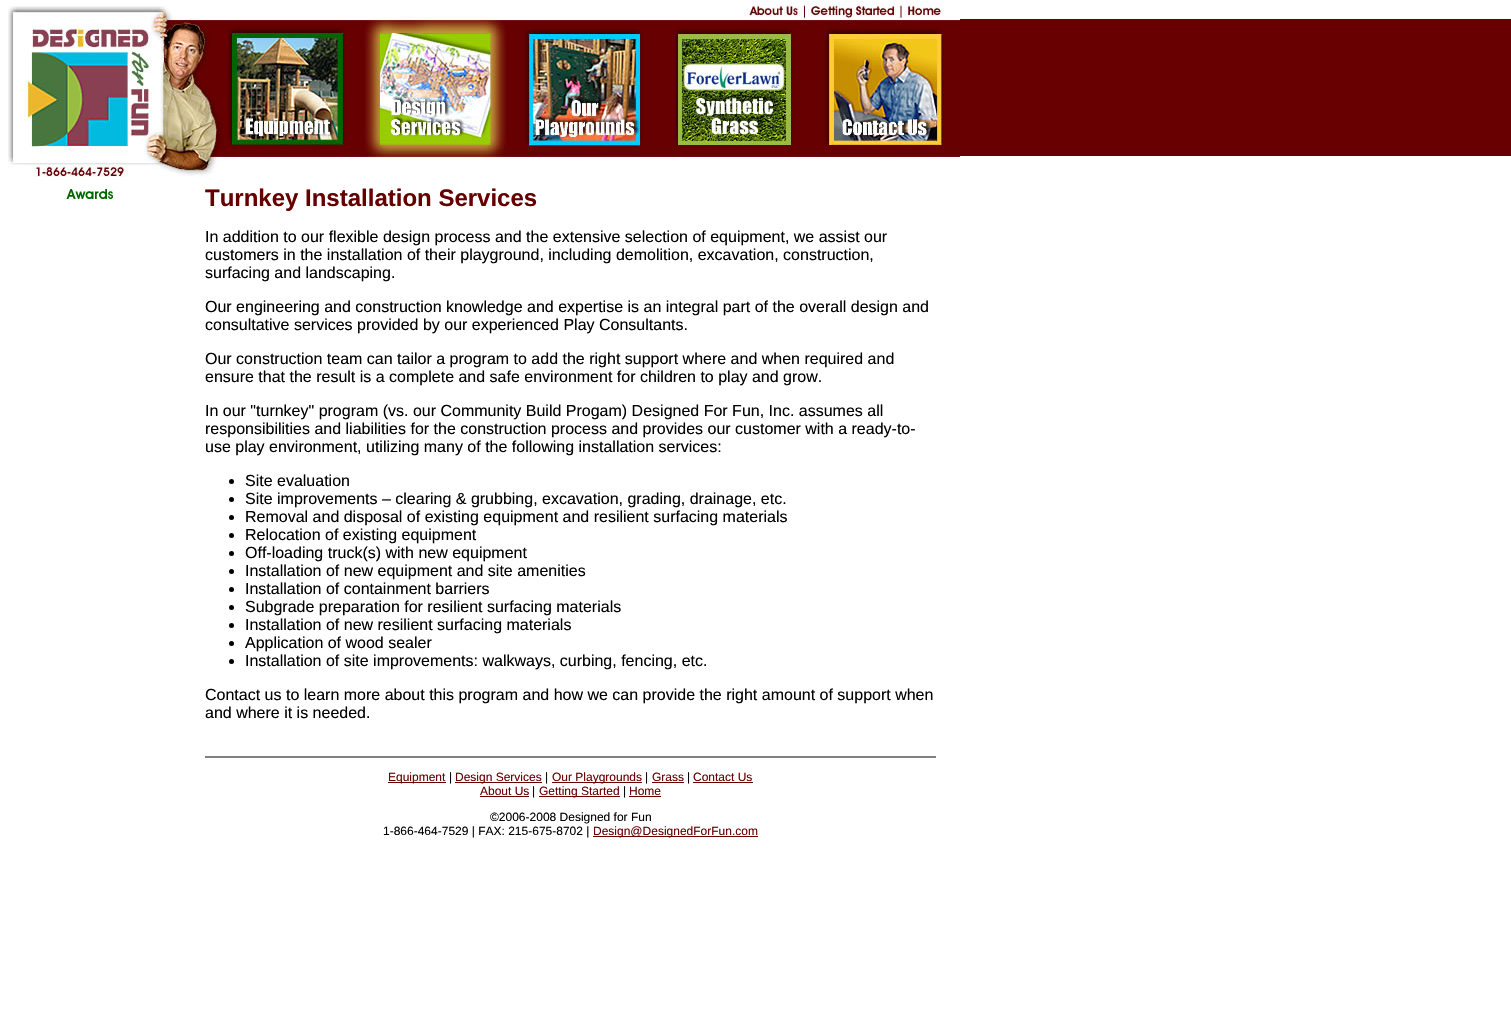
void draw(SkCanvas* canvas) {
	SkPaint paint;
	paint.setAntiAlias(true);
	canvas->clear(0xffffffff);
	canvas->drawImageRect(SkImages::DeferredFromEncodedData(SkData::MakeFromFileName("img1.png")), SkRect::MakeXYWH(8, 1, 952, 176), SkSamplingOptions());
	paint.setColor(0xff680001);
	canvas->drawRect(SkRect::MakeXYWH(960, 19, 551, 137), paint);
	canvas->drawImageRect(SkImages::DeferredFromEncodedData(SkData::MakeFromFileName("img2.png")), SkRect::MakeXYWH(66, 189, 47, 10), SkSamplingOptions());
	SkFont f1(fontMgr->matchFamilyStyle("Liberation Sans", SkFontStyle::Bold()), 24);
	f1.setSubpixel(true);
	paint.setColor(0xff660000);
	canvas->drawString("Turnkey Installation Services", 205, 206, f1, paint);
	SkFont f2(fontMgr->matchFamilyStyle("Liberation Sans", SkFontStyle::Normal()), 16);
	f2.setSubpixel(true);
	paint.setColor(0xff000000);
	canvas->drawString("In addition to our flexible design process and the extensive selection of equipment, we assist our", 205, 242, f2, paint);
	canvas->drawString("customers in the installation of their playground, including demolition, excavation, construction,", 205, 260, f2, paint);
	canvas->drawString("surfacing and landscaping.", 205, 278, f2, paint);
	canvas->drawString("Our engineering and construction knowledge and expertise is an integral part of the overall design and", 205, 312, f2, paint);
	canvas->drawString("consultative services provided by our experienced Play Consultants.", 205, 330, f2, paint);
	canvas->drawString("Our construction team can tailor a program to add the right support where and when required and", 205, 364, f2, paint);
	canvas->drawString("ensure that the result is a complete and safe environment for children to play and grow.", 205, 382, f2, paint);
	canvas->drawString("In our \"turnkey\" program (vs. our Community Build Progam) Designed For Fun, Inc. assumes all", 205, 416, f2, paint);
	canvas->drawString("responsibilities and liabilities for the construction process and provides our customer with a ready-to-", 205, 434, f2, paint);
	canvas->drawString("use play environment, utilizing many of the following installation services:", 205, 452, f2, paint);
	canvas->drawCircle(231.5, 481.5, 2.5, paint);
	canvas->drawString("Site evaluation", 245, 486, f2, paint);
	canvas->drawCircle(231.5, 499.5, 2.5, paint);
	canvas->drawString("Site improvements – clearing & grubbing, excavation, grading, drainage, etc.", 245, 504, f2, paint);
	canvas->drawCircle(231.5, 517.5, 2.5, paint);
	canvas->drawString("Removal and disposal of existing equipment and resilient surfacing materials", 245, 522, f2, paint);
	canvas->drawCircle(231.5, 535.5, 2.5, paint);
	canvas->drawString("Relocation of existing equipment", 245, 540, f2, paint);
	canvas->drawCircle(231.5, 553.5, 2.5, paint);
	canvas->drawString("Off-loading truck(s) with new equipment", 245, 558, f2, paint);
	canvas->drawCircle(231.5, 571.5, 2.5, paint);
	canvas->drawString("Installation of new equipment and site amenities", 245, 576, f2, paint);
	canvas->drawCircle(231.5, 589.5, 2.5, paint);
	canvas->drawString("Installation of containment barriers", 245, 594, f2, paint);
	canvas->drawCircle(231.5, 607.5, 2.5, paint);
	canvas->drawString("Subgrade preparation for resilient surfacing materials", 245, 612, f2, paint);
	canvas->drawCircle(231.5, 625.5, 2.5, paint);
	canvas->drawString("Installation of new resilient surfacing materials", 245, 630, f2, paint);
	canvas->drawCircle(231.5, 643.5, 2.5, paint);
	canvas->drawString("Application of wood sealer", 245, 648, f2, paint);
	canvas->drawCircle(231.5, 661.5, 2.5, paint);
	canvas->drawString("Installation of site improvements: walkways, curbing, fencing, etc.", 245, 666, f2, paint);
	canvas->drawString("Contact us to learn more about this program and how we can provide the right amount of support when", 205, 700, f2, paint);
	canvas->drawString("and where it is needed.", 205, 718, f2, paint);
	paint.setColor(0xff808080);
	canvas->drawRect(SkRect::MakeXYWH(205, 756, 731, 2), paint);
	paint.setColor(0xff680001);
	canvas->drawRect(SkRect::MakeXYWH(388, 782, 58, 1), paint);
	SkFont f3(fontMgr->matchFamilyStyle("Liberation Sans", SkFontStyle::Normal()), 12);
	f3.setSubpixel(true);
	paint.setColor(0xff660000);
	canvas->drawString("Equipment", 388, 781, f3, paint);
	paint.setColor(0xff000000);
	canvas->drawString("|", 449, 781, f3, paint);
	paint.setColor(0xff680001);
	canvas->drawRect(SkRect::MakeXYWH(455, 782, 87, 1), paint);
	paint.setColor(0xff660000);
	canvas->drawString("Design Services", 455, 781, f3, paint);
	paint.setColor(0xff000000);
	canvas->drawString("|", 545, 781, f3, paint);
	paint.setColor(0xff680001);
	canvas->drawRect(SkRect::MakeXYWH(552, 782, 90, 1), paint);
	paint.setColor(0xff660000);
	canvas->drawString("Our Playgrounds", 552, 781, f3, paint);
	paint.setColor(0xff000000);
	canvas->drawString("|", 645, 781, f3, paint);
	paint.setColor(0xff660000);
	canvas->drawString("Grass", 652, 781, f3, paint);
	paint.setColor(0xff680001);
	canvas->drawRect(SkRect::MakeXYWH(652, 782, 32, 1), paint);
	paint.setColor(0xff000000);
	canvas->drawString("|", 687, 781, f3, paint);
	paint.setColor(0xff660000);
	canvas->drawString("Contact Us", 693, 781, f3, paint);
	paint.setColor(0xff680001);
	canvas->drawRect(SkRect::MakeXYWH(693, 782, 60, 1), paint);
	paint.setColor(0xff660000);
	canvas->drawString("About Us", 480, 795, f3, paint);
	paint.setColor(0xff680001);
	canvas->drawRect(SkRect::MakeXYWH(480, 796, 49, 1), paint);
	paint.setColor(0xff000000);
	canvas->drawString("|", 532, 795, f3, paint);
	paint.setColor(0xff680001);
	canvas->drawRect(SkRect::MakeXYWH(539, 796, 81, 1), paint);
	paint.setColor(0xff660000);
	canvas->drawString("Getting Started", 539, 795, f3, paint);
	paint.setColor(0xff000000);
	canvas->drawString("|", 623, 795, f3, paint);
	paint.setColor(0xff660000);
	canvas->drawString("Home", 629, 795, f3, paint);
	paint.setColor(0xff680001);
	canvas->drawRect(SkRect::MakeXYWH(629, 796, 32, 1), paint);
	paint.setColor(0xff000000);
	canvas->drawString("©2006-2008 Designed for Fun", 490, 821, f3, paint);
	canvas->drawString("1-866-464-7529 | FAX: 215-675-8702 |", 383, 835, f3, paint);
	paint.setColor(0xff680001);
	canvas->drawRect(SkRect::MakeXYWH(593, 836, 165, 1), paint);
	paint.setColor(0xff660000);
	canvas->drawString("Design@DesignedForFun.com", 593, 835, f3, paint);
}
